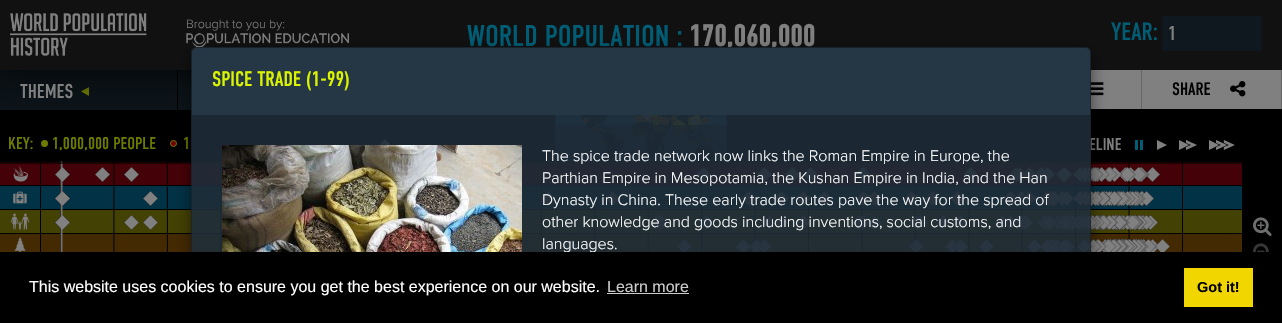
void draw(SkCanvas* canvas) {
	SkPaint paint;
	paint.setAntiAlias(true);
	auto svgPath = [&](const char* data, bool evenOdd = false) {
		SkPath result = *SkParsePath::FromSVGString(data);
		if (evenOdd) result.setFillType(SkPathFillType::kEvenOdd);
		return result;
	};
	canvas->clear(0xff000000);
	paint.setColor(0xff0c1419);
	canvas->drawRect(SkRect::MakeXYWH(0, 70, 177, 40), paint);
	canvas->drawImageRect(SkImages::DeferredFromEncodedData(SkData::MakeFromFileName("img3.png")), SkRect::MakeXYWH(81, 87, 8, 9), SkSamplingOptions());
	canvas->drawRect(SkRect::MakeXYWH(178, 70, 14, 40), paint);
	canvas->drawImageRect(SkImages::DeferredFromEncodedData(SkData::MakeFromFileName("img4.png")), SkRect::MakeXYWH(555, 115, 172, 46), SkSamplingOptions());
	canvas->drawImageRect(SkImages::DeferredFromEncodedData(SkData::MakeFromFileName("img11.png")), SkRect::MakeXYWH(0, 161, 1242, 91), SkSamplingOptions());
	paint.setColor(0x99000000);
	canvas->drawRect(SkRect::MakeXYWH(0, 125, 1242, 39), paint);
	paint.setColor(0xbf000000);
	paint.setMaskFilter(SkMaskFilter::MakeBlur(kNormal_SkBlurStyle, 17));
	canvas->drawRect(SkRect::MakeXYWH(-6, -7, 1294, 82), paint);
	paint.setMaskFilter(nullptr);
	paint.setColor(0xff111111);
	canvas->drawRect(SkRect::MakeXYWH(0, 0, 1282, 70), paint);
	canvas->drawImageRect(SkImages::DeferredFromEncodedData(SkData::MakeFromFileName("img1.png")), SkRect::MakeXYWH(10, 13, 137, 43), SkSamplingOptions());
	SkFont f1(fontMgr->matchFamilyStyle("Proxima Nova", SkFontStyle(300, SkFontStyle::kNormal_Width, SkFontStyle::kUpright_Slant)), 12.5);
	f1.setSubpixel(true);
	paint.setColor(0xff808080);
	canvas->drawString("Brought to you by:", 186, 28, f1, paint);
	canvas->drawImageRect(SkImages::DeferredFromEncodedData(SkData::MakeFromFileName("img2.png")), SkRect::MakeXYWH(186, 33, 163, 15), SkSamplingOptions());
	SkFont f2(fontMgr->matchFamilyStyle("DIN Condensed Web", SkFontStyle::Normal()), 30);
	f2.setSubpixel(true);
	paint.setColor(0xff005d76);
	canvas->drawString("WORLD POPULATION :", 467, 46, f2, paint);
	SkFont f3(fontMgr->matchFamilyStyle("DIN Condensed Web", SkFontStyle::Bold()), 30);
	f3.setSubpixel(true);
	paint.setColor(0xff808080);
	canvas->drawString("170,060,000", 689, 46, f3, paint);
	SkFont f4(fontMgr->matchFamilyStyle("DIN Condensed Web", SkFontStyle::Normal()), 25);
	f4.setSubpixel(true);
	paint.setColor(0xff005d76);
	canvas->drawString("YEAR:", 1111, 40, f4, paint);
	paint.setColor(0xff0f181f);
	canvas->drawRect(SkRect::MakeXYWH(1162, 16, 100, 35), paint);
	SkFont f5(fontMgr->matchFamilyStyle("DIN Condensed Web", SkFontStyle::Normal()), 20);
	f5.setSubpixel(true);
	paint.setColor(0xff808080);
	canvas->drawString("1", 1168, 40, f5, paint);
	canvas->drawString("THEMES", 20, 98, f5, paint);
	canvas->drawRect(SkRect::MakeXYWH(1090, 70, 51, 39), paint);
	paint.setColor(0xff666666);
	canvas->drawRect(SkRect::MakeXYWH(1141, 70, 1, 39), paint);
	canvas->drawImageRect(SkImages::DeferredFromEncodedData(SkData::MakeFromFileName("img5.png")), SkRect::MakeXYWH(1090, 82, 14, 14), SkSamplingOptions());
	paint.setColor(0xff808080);
	canvas->drawRect(SkRect::MakeXYWH(1142, 70, 139, 39), paint);
	paint.setColor(0xff666666);
	canvas->drawRect(SkRect::MakeXYWH(1281, 70, 1, 39), paint);
	SkFont f6(fontMgr->matchFamilyStyle("DIN Condensed Web", SkFontStyle::Normal()), 18);
	f6.setSubpixel(true);
	paint.setColor(0xff000000);
	canvas->drawString("SHARE", 1172, 95, f6, paint);
	canvas->drawImageRect(SkImages::DeferredFromEncodedData(SkData::MakeFromFileName("img6.png")), SkRect::MakeXYWH(1230, 81, 16, 16), SkSamplingOptions());
	SkFont f7(fontMgr->matchFamilyStyle("DIN Condensed Web", SkFontStyle::Normal()), 17);
	f7.setSubpixel(true);
	paint.setColor(0xff6e7b00);
	canvas->drawString("KEY:", 8, 149, f7, paint);
	canvas->drawCircle(44.5, 143.5, 3.5, paint);
	canvas->drawString("1,000,000 PEOPLE", 52, 149, f7, paint);
	paint.setColor(0xff720000);
	canvas->drawCircle(173.5, 143.5, 3, paint);
	paint.setStroke(true);
	paint.setStrokeWidth(1);
	paint.setColor(0xff6e7b00);
	canvas->drawCircle(173.5, 143.5, 3, paint);
	paint.setStroke(false);
	canvas->drawString("1", 183, 149, f7, paint);
	paint.setColor(0xff808080);
	canvas->drawPath(svgPath("M390 144H380L385 139ZM380 144H390L385 149Z"), paint);
	canvas->drawString("ELINE", 1089, 150, f7, paint);
	paint.setColor(0xff005d76);
	canvas->drawRect(SkRect::MakeXYWH(1135, 140, 3, 10), paint);
	canvas->drawRect(SkRect::MakeXYWH(1140, 140, 3, 10), paint);
	paint.setColor(0xff808080);
	canvas->drawPath(svgPath("M1157 140L1167 145L1157 150Z"), paint);
	canvas->drawImageRect(SkImages::DeferredFromEncodedData(SkData::MakeFromFileName("img7.png")), SkRect::MakeXYWH(1179, 140, 18, 10), SkSamplingOptions());
	canvas->drawImageRect(SkImages::DeferredFromEncodedData(SkData::MakeFromFileName("img8.png")), SkRect::MakeXYWH(1209, 140, 26, 10), SkSamplingOptions());
	canvas->drawImageRect(SkImages::DeferredFromEncodedData(SkData::MakeFromFileName("img9.png")), SkRect::MakeXYWH(1253, 217, 19, 19), SkSamplingOptions());
	canvas->drawImageRect(SkImages::DeferredFromEncodedData(SkData::MakeFromFileName("img10.png")), SkRect::MakeXYWH(1253, 243, 16, 9), SkSamplingOptions());
	canvas->save();
	canvas->clipPath(svgPath("M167 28H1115V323H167ZM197 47H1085C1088.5 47 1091 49.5 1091 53V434C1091 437.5 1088.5 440 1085 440H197C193.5 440 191 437.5 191 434V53C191 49.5 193.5 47 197 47Z", true), true);
	paint.setColor(0x80000000);
	paint.setMaskFilter(SkMaskFilter::MakeBlur(kNormal_SkBlurStyle, 7.5));
	canvas->drawRoundRect(SkRect::MakeXYWH(191, 52, 900, 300), 6, 6, paint);
	paint.setMaskFilter(nullptr);
	canvas->restore();
	paint.setColor(0xe61e2c39);
	canvas->drawPath(svgPath("M197 47H1085C1088.5 47 1091 49.5 1091 53V323H191V53C191 49.5 193.5 47 197 47Z"), paint);
	paint.setStroke(true);
	paint.setColor(0x33000000);
	canvas->drawRoundRect(SkRect::MakeXYWH(191.5, 47.5, 899, 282), 5.5, 5.5, paint);
	paint.setStroke(false);
	paint.setColor(0xff253645);
	canvas->drawPath(svgPath("M197 48H1085C1088 48 1090 50 1090 53V115H192V53C192 50 194 48 197 48Z"), paint);
	SkFont f8(fontMgr->matchFamilyStyle("DIN Condensed Web", SkFontStyle::Normal()), 21);
	f8.setSubpixel(true);
	paint.setColor(0xffdbf500);
	canvas->drawString("SPICE TRADE (1-99)", 212, 86, f8, paint);
	canvas->drawImageRect(SkImages::DeferredFromEncodedData(SkData::MakeFromFileName("img12.png")), SkRect::MakeXYWH(222, 145, 300, 107), SkSamplingOptions());
	SkFont f9(fontMgr->matchFamilyStyle("Proxima Nova", SkFontStyle(300, SkFontStyle::kNormal_Width, SkFontStyle::kUpright_Slant)), 16);
	f9.setSubpixel(true);
	paint.setColor(0xffffffff);
	canvas->drawString("The spice trade network now links the Roman Empire in Europe, the", 542, 161, f9, paint);
	canvas->drawString("Parthian Empire in Mesopotamia, the Kushan Empire in India, and the Han", 542, 183, f9, paint);
	canvas->drawString("Dynasty in China. These early trade routes pave the way for the spread of", 542, 205, f9, paint);
	canvas->drawString("other knowledge and goods including inventions, social customs, and", 542, 227, f9, paint);
	canvas->drawString("languages.", 542, 249, f9, paint);
	paint.setColor(0xff000000);
	canvas->drawRect(SkRect::MakeXYWH(191, 252, 900, 71), paint);
	SkFont f10(fontMgr->matchFamilyStyle("Liberation Sans", SkFontStyle::Normal()), 16);
	f10.setSubpixel(true);
	paint.setColor(0xffffffff);
	canvas->drawString("This website uses cookies to ensure you get the best experience on our website.", 29, 292, f10, paint);
	paint.setColor(0xffcccccc);
	canvas->drawString("Learn more", 607, 292, f10, paint);
	canvas->drawRect(SkRect::MakeXYWH(607, 293, 82, 1), paint);
	paint.setColor(0xfff1d600);
	canvas->drawRect(SkRect::MakeXYWH(1184, 268, 69, 39), paint);
	SkFont f11(fontMgr->matchFamilyStyle("Liberation Sans", SkFontStyle::Bold()), 14.5);
	f11.setSubpixel(true);
	paint.setColor(0xff000000);
	canvas->drawString("Got it!", 1197, 292, f11, paint);
}
